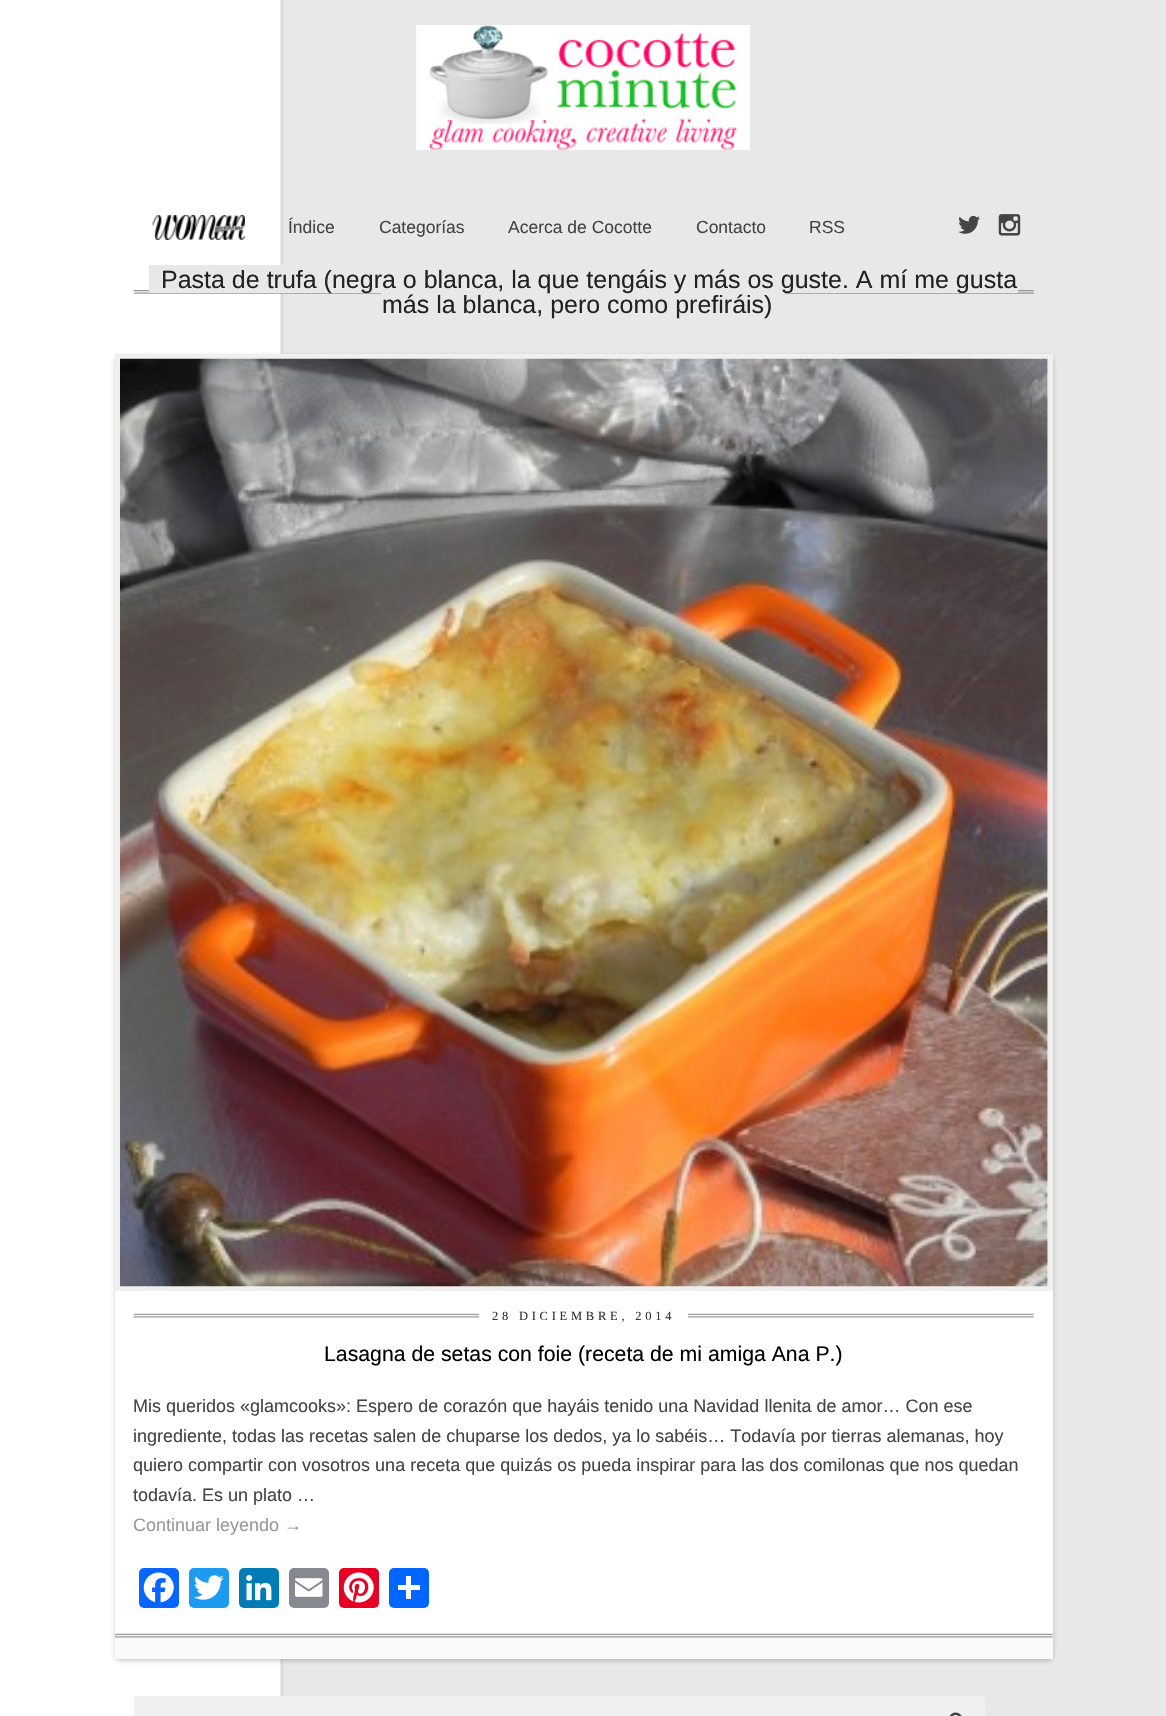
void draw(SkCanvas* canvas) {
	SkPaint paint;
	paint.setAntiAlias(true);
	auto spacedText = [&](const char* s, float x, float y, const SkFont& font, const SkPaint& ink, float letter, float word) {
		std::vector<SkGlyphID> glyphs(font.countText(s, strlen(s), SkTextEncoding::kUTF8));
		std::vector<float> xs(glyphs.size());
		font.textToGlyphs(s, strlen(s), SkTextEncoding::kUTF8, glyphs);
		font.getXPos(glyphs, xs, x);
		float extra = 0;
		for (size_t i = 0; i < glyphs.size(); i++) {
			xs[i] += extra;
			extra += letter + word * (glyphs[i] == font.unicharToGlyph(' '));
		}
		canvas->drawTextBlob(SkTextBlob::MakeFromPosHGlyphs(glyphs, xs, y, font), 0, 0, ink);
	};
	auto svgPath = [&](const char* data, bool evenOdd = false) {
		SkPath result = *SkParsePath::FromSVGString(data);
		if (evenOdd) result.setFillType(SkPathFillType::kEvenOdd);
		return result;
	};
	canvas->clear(0xffe8e8e8);
	canvas->drawImageRect(SkImages::DeferredFromEncodedData(SkData::MakeFromFileName("img1.png")), SkRect::MakeXYWH(0, 0, 284, 1716), SkSamplingOptions());
	canvas->drawImageRect(SkImages::DeferredFromEncodedData(SkData::MakeFromFileName("img2.png")), SkRect::MakeXYWH(416, 25, 334, 125), SkSamplingOptions());
	canvas->drawImageRect(SkImages::DeferredFromEncodedData(SkData::MakeFromFileName("img3.png")), SkRect::MakeXYWH(152, 215, 93, 25), SkSamplingOptions());
	SkFont f1(fontMgr->matchFamilyStyle("Liberation Sans", SkFontStyle::Normal()), 17.5);
	f1.setSubpixel(true);
	paint.setColor(0xff444444);
	canvas->drawString("Índice", 288, 233, f1, paint);
	canvas->drawString("Categorías", 379, 233, f1, paint);
	canvas->drawString("Acerca de Cocotte", 508, 233, f1, paint);
	canvas->drawString("Contacto", 696, 233, f1, paint);
	canvas->drawString("RSS", 809, 233, f1, paint);
	canvas->drawImageRect(SkImages::DeferredFromEncodedData(SkData::MakeFromFileName("img4.png")), SkRect::MakeXYWH(958, 215, 22, 19), SkSamplingOptions());
	canvas->drawImageRect(SkImages::DeferredFromEncodedData(SkData::MakeFromFileName("img5.png")), SkRect::MakeXYWH(998, 214, 23, 22), SkSamplingOptions());
	canvas->drawImageRect(SkImages::DeferredFromEncodedData(SkData::MakeFromFileName("img6.png")), SkRect::MakeXYWH(133, 290, 901, 4), SkSamplingOptions());
	paint.setColor(0xffe8e8e8);
	canvas->drawRect(SkRect::MakeXYWH(149, 265, 869, 28), paint);
	canvas->drawRect(SkRect::MakeXYWH(381, 293, 404, 1), paint);
	SkFont f2(fontMgr->matchFamilyStyle("Liberation Sans", SkFontStyle::Normal()), 25);
	f2.setSubpixel(true);
	paint.setColor(0xff222222);
	canvas->drawString("Pasta de trufa (negra o blanca, la que tengáis y más os guste. A mí me gusta", 161, 288, f2, paint);
	canvas->drawString("más la blanca, pero como prefiráis)", 382, 313, f2, paint);
	paint.setColor(0x33000000);
	paint.setMaskFilter(SkMaskFilter::MakeBlur(kNormal_SkBlurStyle, 2));
	canvas->drawRoundRect(SkRect::MakeXYWH(115, 356, 938, 1305), 6, 6, paint);
	paint.setMaskFilter(nullptr);
	paint.setColor(0xffffffff);
	canvas->drawRect(SkRect::MakeXYWH(115, 359, 938, 1275), paint);
	paint.setStroke(true);
	paint.setStrokeWidth(5);
	paint.setColor(0xfff0f0ef);
	canvas->drawRect(SkRect::MakeXYWH(117.5, 356.5, 933, 932), paint);
	canvas->drawImageRect(SkImages::DeferredFromEncodedData(SkData::MakeFromFileName("img7.png")), SkRect::MakeXYWH(120, 358, 928, 929), SkSamplingOptions());
	canvas->drawImageRect(SkImages::DeferredFromEncodedData(SkData::MakeFromFileName("img8.png")), SkRect::MakeXYWH(133, 1313, 901, 5), SkSamplingOptions());
	paint.setStroke(false);
	paint.setColor(0xffffffff);
	canvas->drawRect(SkRect::MakeXYWH(479, 1313, 209, 5), paint);
	SkFont f3(fontMgr->matchFamilyStyle("Liberation Serif", SkFontStyle::Normal()), 12.5);
	f3.setSubpixel(true);
	paint.setColor(0xff333333);
	spacedText("28 DICIEMBRE, 2014", 492, 1320, f3, paint, 3.75, 0);
	SkFont f4(fontMgr->matchFamilyStyle("Liberation Sans", SkFontStyle::Normal()), 21.25);
	f4.setSubpixel(true);
	paint.setColor(0xff000000);
	canvas->drawString("Lasagna de setas con foie (receta de mi amiga Ana P.)", 324, 1361, f4, paint);
	SkFont f5(fontMgr->matchFamilyStyle("Liberation Sans", SkFontStyle::Normal()), 18);
	f5.setSubpixel(true);
	paint.setColor(0xff444444);
	canvas->drawString("Mis queridos «glamcooks»: Espero de corazón que hayáis tenido una Navidad llenita de amor… Con ese", 133, 1412, f5, paint);
	canvas->drawString("ingrediente, todas las recetas salen de chuparse los dedos, ya lo sabéis… Todavía por tierras alemanas, hoy", 133, 1442, f5, paint);
	canvas->drawString("quiero compartir con vosotros una receta que quizás os pueda inspirar para las dos comilonas que nos quedan", 133, 1471, f5, paint);
	canvas->drawString("todavía. Es un plato …", 133, 1501, f5, paint);
	paint.setColor(0xff999999);
	canvas->drawString("Continuar leyendo →", 133, 1531, f5, paint);
	paint.setColor(0xff0866ff);
	canvas->drawRoundRect(SkRect::MakeXYWH(139, 1568, 40, 40), 5, 5, paint);
	canvas->drawImageRect(SkImages::DeferredFromEncodedData(SkData::MakeFromFileName("img9.png")), SkRect::MakeXYWH(143, 1572, 31, 31), SkSamplingOptions());
	paint.setColor(0xff1d9bf0);
	canvas->drawRoundRect(SkRect::MakeXYWH(189, 1568, 40, 40), 5, 5, paint);
	canvas->drawImageRect(SkImages::DeferredFromEncodedData(SkData::MakeFromFileName("img10.png")), SkRect::MakeXYWH(194, 1575, 30, 25), SkSamplingOptions());
	paint.setColor(0xff007bb5);
	canvas->drawRoundRect(SkRect::MakeXYWH(239, 1568, 40, 40), 5, 5, paint);
	canvas->drawImageRect(SkImages::DeferredFromEncodedData(SkData::MakeFromFileName("img11.png")), SkRect::MakeXYWH(246, 1574, 26, 27), SkSamplingOptions());
	paint.setColor(0xff888990);
	canvas->drawRoundRect(SkRect::MakeXYWH(289, 1568, 40, 40), 5, 5, paint);
	canvas->drawImageRect(SkImages::DeferredFromEncodedData(SkData::MakeFromFileName("img12.png")), SkRect::MakeXYWH(295, 1578, 28, 19), SkSamplingOptions());
	paint.setColor(0xffe60023);
	canvas->drawRoundRect(SkRect::MakeXYWH(339, 1568, 40, 40), 5, 5, paint);
	canvas->drawImageRect(SkImages::DeferredFromEncodedData(SkData::MakeFromFileName("img13.png")), SkRect::MakeXYWH(343, 1572, 31, 31), SkSamplingOptions());
	paint.setColor(0xff0166ff);
	canvas->drawRoundRect(SkRect::MakeXYWH(389, 1568, 40, 40), 5, 5, paint);
	paint.setColor(0xffffffff);
	canvas->drawRect(SkRect::MakeXYWH(406, 1576, 5, 23), paint);
	canvas->drawRect(SkRect::MakeXYWH(398, 1585, 22, 5), paint);
	paint.setColor(0xfffafafa);
	canvas->drawRect(SkRect::MakeXYWH(115, 1634, 938, 25), paint);
	canvas->drawImageRect(SkImages::DeferredFromEncodedData(SkData::MakeFromFileName("img14.png")), SkRect::MakeXYWH(115, 1633, 938, 5), SkSamplingOptions());
	paint.setColor(0xfff0f0ef);
	canvas->drawRect(SkRect::MakeXYWH(134, 1696, 795, 20), paint);
	canvas->drawPath(svgPath("M929 1696H981C983 1696 985 1698 985 1700V1716C985 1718 983 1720 981 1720H929Z"), paint);
	canvas->drawImageRect(SkImages::DeferredFromEncodedData(SkData::MakeFromFileName("img15.png")), SkRect::MakeXYWH(949, 1712, 13, 4), SkSamplingOptions());
}
